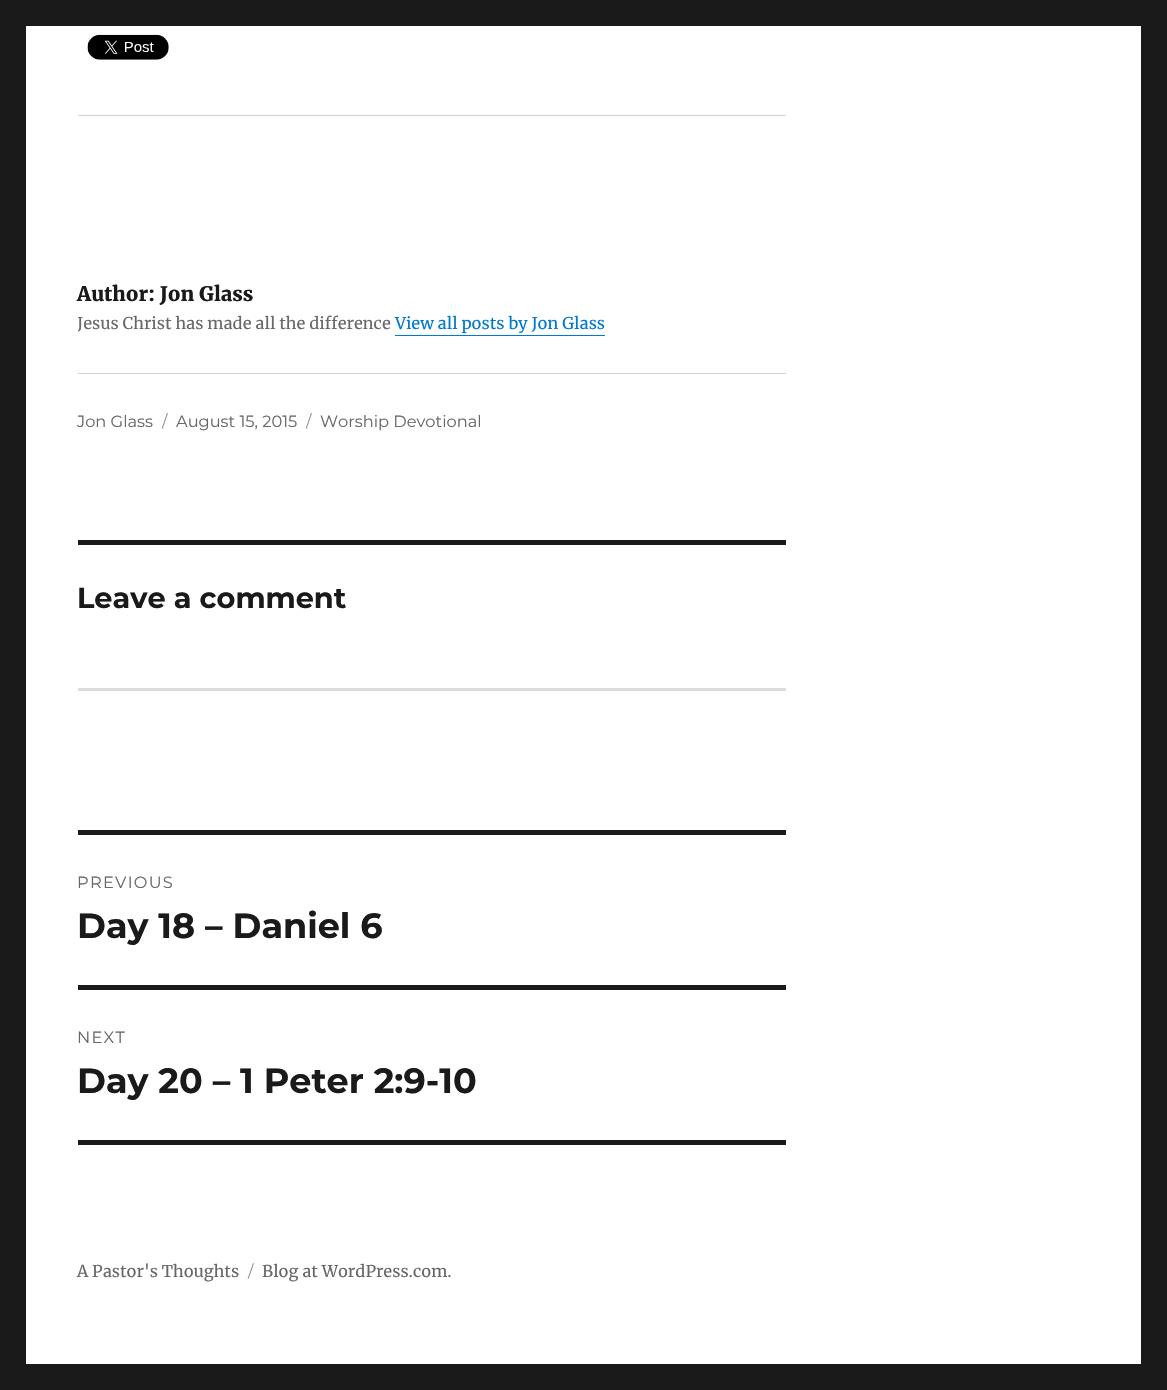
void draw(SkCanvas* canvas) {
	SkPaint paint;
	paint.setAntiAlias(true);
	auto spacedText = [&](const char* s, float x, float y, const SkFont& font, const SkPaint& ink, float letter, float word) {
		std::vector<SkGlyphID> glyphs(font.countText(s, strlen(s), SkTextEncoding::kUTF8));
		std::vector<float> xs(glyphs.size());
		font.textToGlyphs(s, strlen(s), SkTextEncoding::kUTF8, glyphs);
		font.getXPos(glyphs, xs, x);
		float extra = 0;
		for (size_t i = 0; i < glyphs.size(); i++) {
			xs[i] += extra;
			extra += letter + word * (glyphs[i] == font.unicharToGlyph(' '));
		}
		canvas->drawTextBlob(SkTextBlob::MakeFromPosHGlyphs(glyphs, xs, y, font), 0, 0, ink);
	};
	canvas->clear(0xff1a1a1a);
	paint.setColor(0xffffffff);
	canvas->drawRect(SkRect::MakeXYWH(26, 26, 1115, 1338), paint);
	canvas->drawImageRect(SkImages::DeferredFromEncodedData(SkData::MakeFromFileName("img1.png")), SkRect::MakeXYWH(87, 34, 82, 26), SkSamplingOptions());
	paint.setColor(0xffd1d1d1);
	canvas->drawRect(SkRect::MakeXYWH(78, 115, 708, 1), paint);
	canvas->drawRect(SkRect::MakeXYWH(78, 373, 708, 1), paint);
	SkFont f1(fontMgr->matchFamilyStyle("Merriweather", SkFontStyle(900, SkFontStyle::kNormal_Width, SkFontStyle::kUpright_Slant)), 20);
	f1.setSubpixel(true);
	paint.setColor(0xff1a1a1a);
	canvas->drawString("Author: Jon Glass", 77, 301, f1, paint);
	canvas->save();
	canvas->clipRect(SkRect::MakeXYWH(78, 311, 708, 27));
	SkFont f2(fontMgr->matchFamilyStyle("Merriweather", SkFontStyle::Normal()), 16.25);
	f2.setSubpixel(true);
	paint.setColor(0xff686868);
	canvas->drawString("Jesus Christ has made all the difference", 77, 329, f2, paint);
	canvas->restore();
	paint.setColor(0xff007acc);
	canvas->drawString("View all posts by Jon Glass", 395, 329, f2, paint);
	canvas->drawRect(SkRect::MakeXYWH(395, 335, 210, 1), paint);
	SkFont f3(fontMgr->matchFamilyStyle("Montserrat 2", SkFontStyle(100, SkFontStyle::kNormal_Width, SkFontStyle::kUpright_Slant)), 16.25);
	f3.setSubpixel(true);
	paint.setColor(0xff686868);
	canvas->drawString("Jon Glass", 77, 427, f3, paint);
	paint.setColor(0xff959595);
	canvas->drawString("/", 162, 427, f3, paint);
	paint.setColor(0xff686868);
	canvas->drawString("August 15, 2015", 176, 427, f3, paint);
	paint.setColor(0xff959595);
	canvas->drawString("/", 306, 427, f3, paint);
	paint.setColor(0xff686868);
	canvas->drawString("Worship Devotional", 320, 427, f3, paint);
	paint.setColor(0xff1a1a1a);
	canvas->drawRect(SkRect::MakeXYWH(78, 540, 708, 5), paint);
	SkFont f4(fontMgr->matchFamilyStyle("Montserrat", SkFontStyle(100, SkFontStyle::kNormal_Width, SkFontStyle::kUpright_Slant)), 28.75);
	f4.setSubpixel(true);
	canvas->drawString("Leave a comment", 77, 608, f4, paint);
	paint.setColor(0xffdcdcde);
	canvas->drawRect(SkRect::MakeXYWH(78, 688, 708, 3), paint);
	paint.setColor(0xff1a1a1a);
	canvas->drawRect(SkRect::MakeXYWH(78, 830, 708, 5), paint);
	canvas->drawRect(SkRect::MakeXYWH(78, 1140, 708, 5), paint);
	paint.setColor(0xff686868);
	spacedText("PREVIOUS", 77, 888, f3, paint, 1.25, 0);
	SkFont f5(fontMgr->matchFamilyStyle("Montserrat", SkFontStyle(100, SkFontStyle::kNormal_Width, SkFontStyle::kUpright_Slant)), 35);
	f5.setSubpixel(true);
	paint.setColor(0xff1a1a1a);
	canvas->drawString("Day 18 – Daniel 6", 77, 938, f5, paint);
	canvas->drawRect(SkRect::MakeXYWH(78, 985, 708, 5), paint);
	paint.setColor(0xff686868);
	spacedText("NEXT", 77, 1043, f3, paint, 1.25, 0);
	paint.setColor(0xff1a1a1a);
	canvas->drawString("Day 20 – 1 Peter 2:9-10", 77, 1093, f5, paint);
	paint.setColor(0xff686868);
	canvas->drawString("A Pastor's Thoughts", 77, 1277, f2, paint);
	paint.setColor(0xff959595);
	canvas->drawString("/", 248, 1277, f3, paint);
	paint.setColor(0xff686868);
	canvas->drawString("Blog at WordPress.com.", 262, 1277, f2, paint);
}
